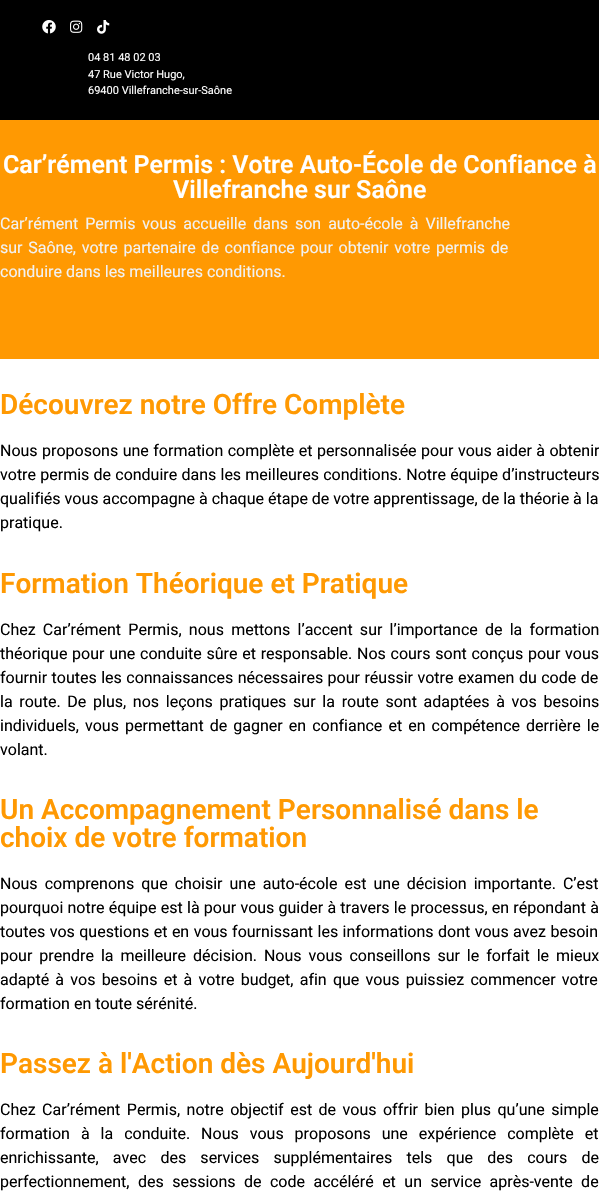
void draw(SkCanvas* canvas) {
	SkPaint paint;
	paint.setAntiAlias(true);
	auto spacedText = [&](const char* s, float x, float y, const SkFont& font, const SkPaint& ink, float letter, float word) {
		std::vector<SkGlyphID> glyphs(font.countText(s, strlen(s), SkTextEncoding::kUTF8));
		std::vector<float> xs(glyphs.size());
		font.textToGlyphs(s, strlen(s), SkTextEncoding::kUTF8, glyphs);
		font.getXPos(glyphs, xs, x);
		float extra = 0;
		for (size_t i = 0; i < glyphs.size(); i++) {
			xs[i] += extra;
			extra += letter + word * (glyphs[i] == font.unicharToGlyph(' '));
		}
		canvas->drawTextBlob(SkTextBlob::MakeFromPosHGlyphs(glyphs, xs, y, font), 0, 0, ink);
	};
	canvas->clear(0xffffffff);
	paint.setColor(0xff000000);
	canvas->drawRect(SkRect::MakeXYWH(0, 0, 599, 120), paint);
	canvas->drawImageRect(SkImages::DeferredFromEncodedData(SkData::MakeFromFileName("img1.png")), SkRect::MakeXYWH(42, 20, 14, 14), SkSamplingOptions());
	canvas->drawImageRect(SkImages::DeferredFromEncodedData(SkData::MakeFromFileName("img2.png")), SkRect::MakeXYWH(70, 20, 13, 13), SkSamplingOptions());
	canvas->drawImageRect(SkImages::DeferredFromEncodedData(SkData::MakeFromFileName("img3.png")), SkRect::MakeXYWH(97, 20, 13, 14), SkSamplingOptions());
	SkFont f1(fontMgr->matchFamilyStyle("Roboto", SkFontStyle::Normal()), 11);
	f1.setSubpixel(true);
	paint.setColor(0xffffffff);
	canvas->drawString("04 81 48 02 03", 88, 61, f1, paint);
	canvas->drawString("47 Rue Victor Hugo,", 88, 78, f1, paint);
	canvas->drawString("69400 Villefranche-sur-Saône", 88, 94, f1, paint);
	paint.setColor(0xffff9902);
	canvas->drawRect(SkRect::MakeXYWH(0, 120, 599, 239), paint);
	SkFont f2(fontMgr->matchFamilyStyle("Roboto", SkFontStyle(600, SkFontStyle::kNormal_Width, SkFontStyle::kUpright_Slant)), 25);
	f2.setSubpixel(true);
	paint.setColor(0xffffffff);
	canvas->drawString("Car’rément Permis : Votre Auto-École de Confiance à", 3, 173, f2, paint);
	canvas->drawString("Villefranche sur Saône", 173, 198, f2, paint);
	SkFont f3(fontMgr->matchFamilyStyle("Roboto", SkFontStyle::Normal()), 16);
	f3.setSubpixel(true);
	paint.setColor(0xfff2f2f2);
	spacedText("Car’rément Permis vous accueille dans son auto-école à Villefranche", 0, 229, f3, paint, 0, 3);
	spacedText("sur Saône, votre partenaire de confiance pour obtenir votre permis de", 0, 253, f3, paint, 0, 1.75);
	canvas->drawString("conduire dans les meilleures conditions.", 0, 277, f3, paint);
	SkFont f4(fontMgr->matchFamilyStyle("Roboto", SkFontStyle(600, SkFontStyle::kNormal_Width, SkFontStyle::kUpright_Slant)), 28);
	f4.setSubpixel(true);
	paint.setColor(0xffff9902);
	canvas->drawString("Découvrez notre Offre Complète", 0, 414, f4, paint);
	paint.setColor(0xff000000);
	spacedText("Nous proposons une formation complète et personnalisée pour vous aider à obtenir", 0, 456, f3, paint, 0, 0.5);
	spacedText("votre permis de conduire dans les meilleures conditions. Notre équipe d’instructeurs", 0, 480, f3, paint, 0, 0.25);
	canvas->drawString("qualifiés vous accompagne à chaque étape de votre apprentissage, de la théorie à la", 0, 504, f3, paint);
	canvas->drawString("pratique.", 0, 528, f3, paint);
	paint.setColor(0xffff9902);
	canvas->drawString("Formation Théorique et Pratique", 0, 593, f4, paint);
	paint.setColor(0xff000000);
	spacedText("Chez Car’rément Permis, nous mettons l’accent sur l’importance de la formation", 0, 635, f3, paint, 0, 3.25);
	spacedText("théorique pour une conduite sûre et responsable. Nos cours sont conçus pour vous", 0, 659, f3, paint, 0, 0.75);
	spacedText("fournir toutes les connaissances nécessaires pour réussir votre examen du code de", 0, 683, f3, paint, 0, 0.5);
	spacedText("la route. De plus, nos leçons pratiques sur la route sont adaptées à vos besoins", 0, 707, f3, paint, 0, 2.75);
	spacedText("individuels, vous permettant de gagner en confiance et en compétence derrière le", 0, 731, f3, paint, 0, 2.1);
	canvas->drawString("volant.", 0, 755, f3, paint);
	paint.setColor(0xffff9902);
	canvas->drawString("Un Accompagnement Personnalisé dans le", 0, 819, f4, paint);
	canvas->drawString("choix de votre formation", 0, 847, f4, paint);
	paint.setColor(0xff000000);
	spacedText("Nous comprenons que choisir une auto-école est une décision importante. C’est", 0, 889, f3, paint, 0, 3.1);
	spacedText("pourquoi notre équipe est là pour vous guider à travers le processus, en répondant à", 0, 913, f3, paint, 0, 0.25);
	spacedText("toutes vos questions et en vous fournissant les informations dont vous avez besoin", 0, 937, f3, paint, 0, 0.5);
	spacedText("pour prendre la meilleure décision. Nous vous conseillons sur le forfait le mieux", 0, 961, f3, paint, 0, 3);
	spacedText("adapté à vos besoins et à votre budget, afin que vous puissiez commencer votre", 0, 985, f3, paint, 0, 2.25);
	canvas->drawString("formation en toute sérénité.", 0, 1009, f3, paint);
	paint.setColor(0xffff9902);
	canvas->drawString("Passez à l'Action dès Aujourd'hui", 0, 1073, f4, paint);
	paint.setColor(0xff000000);
	spacedText("Chez Car’rément Permis, notre objectif est de vous offrir bien plus qu’une simple", 0, 1115, f3, paint, 0, 2.5);
	spacedText("formation à la conduite. Nous vous proposons une expérience complète et", 0, 1139, f3, paint, 0, 7);
	spacedText("enrichissante, avec des services supplémentaires tels que des cours de", 0, 1163, f3, paint, 0, 10.25);
	spacedText("perfectionnement, des sessions de code accéléré et un service après-vente de", 0, 1187, f3, paint, 0, 4.5);
}
